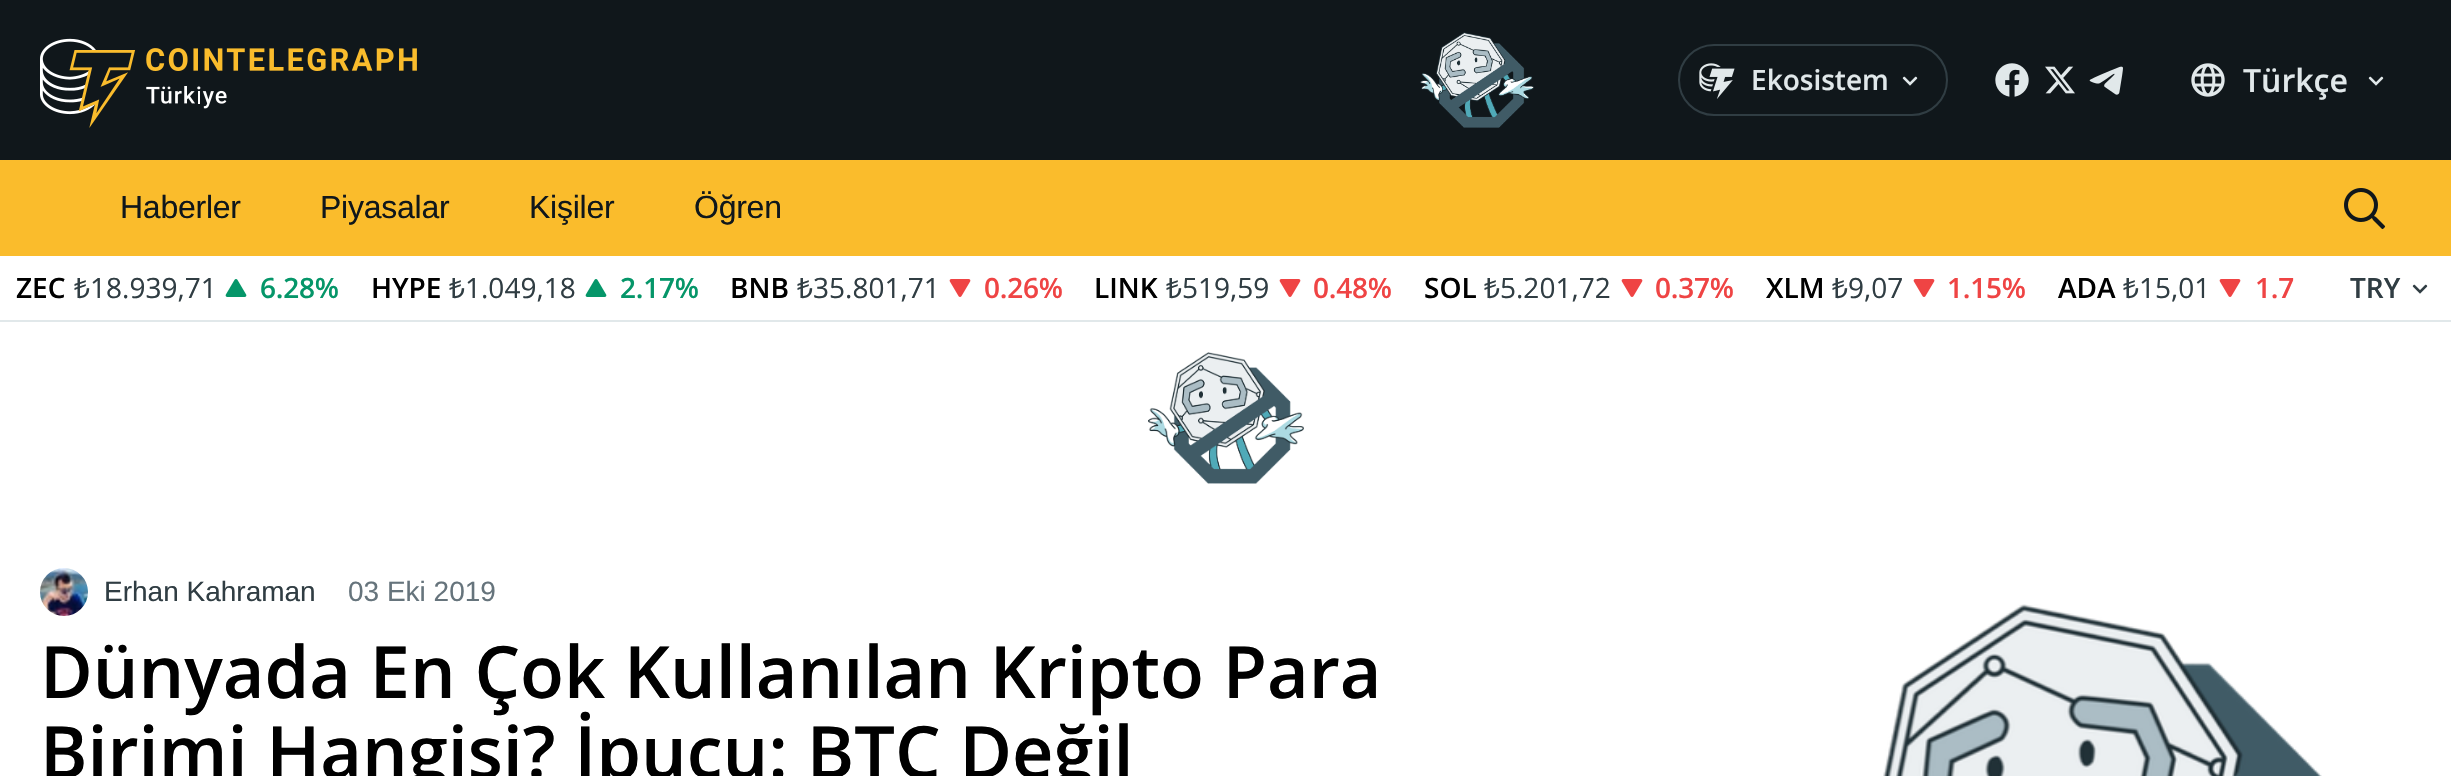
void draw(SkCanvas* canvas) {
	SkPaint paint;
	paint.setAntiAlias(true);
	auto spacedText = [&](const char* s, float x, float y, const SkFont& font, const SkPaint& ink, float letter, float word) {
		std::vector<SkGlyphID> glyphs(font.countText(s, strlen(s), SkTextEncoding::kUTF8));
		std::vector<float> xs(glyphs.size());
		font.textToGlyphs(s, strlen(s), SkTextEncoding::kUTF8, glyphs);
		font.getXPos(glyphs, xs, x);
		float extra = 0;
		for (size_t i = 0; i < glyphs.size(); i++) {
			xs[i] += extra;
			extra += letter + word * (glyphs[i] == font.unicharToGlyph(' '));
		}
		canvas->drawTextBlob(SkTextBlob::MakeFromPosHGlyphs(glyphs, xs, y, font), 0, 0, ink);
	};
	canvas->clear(0xffffffff);
	paint.setColor(0xff10171b);
	canvas->drawRect(SkRect::MakeXYWH(0, 0, 2451, 160), paint);
	canvas->drawImageRect(SkImages::DeferredFromEncodedData(SkData::MakeFromFileName("img1.png")), SkRect::MakeXYWH(40, 38, 377, 90), SkSamplingOptions());
	canvas->drawImageRect(SkImages::DeferredFromEncodedData(SkData::MakeFromFileName("img2.png")), SkRect::MakeXYWH(1420, 32, 114, 96), SkSamplingOptions());
	paint.setStroke(true);
	paint.setStrokeWidth(2);
	paint.setColor(0xff303d43);
	canvas->drawRoundRect(SkRect::MakeXYWH(1679, 45, 268, 70), 35, 35, paint);
	canvas->drawImageRect(SkImages::DeferredFromEncodedData(SkData::MakeFromFileName("img3.png")), SkRect::MakeXYWH(1699, 63, 36, 36), SkSamplingOptions());
	SkFont f1(fontMgr->matchFamilyStyle("Open Sans", SkFontStyle(600, SkFontStyle::kNormal_Width, SkFontStyle::kUpright_Slant)), 28);
	f1.setSubpixel(true);
	paint.setStroke(false);
	paint.setColor(0xffe1e8ea);
	canvas->drawString("Ekosistem", 1751, 90, f1, paint);
	canvas->drawImageRect(SkImages::DeferredFromEncodedData(SkData::MakeFromFileName("img4.png")), SkRect::MakeXYWH(1902, 76, 16, 10), SkSamplingOptions());
	canvas->drawImageRect(SkImages::DeferredFromEncodedData(SkData::MakeFromFileName("img5.png")), SkRect::MakeXYWH(1995, 63, 34, 34), SkSamplingOptions());
	canvas->drawImageRect(SkImages::DeferredFromEncodedData(SkData::MakeFromFileName("img6.png")), SkRect::MakeXYWH(2045, 66, 30, 28), SkSamplingOptions());
	canvas->drawImageRect(SkImages::DeferredFromEncodedData(SkData::MakeFromFileName("img7.png")), SkRect::MakeXYWH(2089, 66, 34, 29), SkSamplingOptions());
	canvas->drawImageRect(SkImages::DeferredFromEncodedData(SkData::MakeFromFileName("img8.png")), SkRect::MakeXYWH(2191, 63, 34, 34), SkSamplingOptions());
	SkFont f2(fontMgr->matchFamilyStyle("Open Sans", SkFontStyle(600, SkFontStyle::kNormal_Width, SkFontStyle::kUpright_Slant)), 32);
	f2.setSubpixel(true);
	canvas->drawString("Türkçe", 2243, 92, f2, paint);
	canvas->drawImageRect(SkImages::DeferredFromEncodedData(SkData::MakeFromFileName("img4.png")), SkRect::MakeXYWH(2368, 76, 16, 10), SkSamplingOptions());
	paint.setColor(0xfffabc2c);
	canvas->drawRect(SkRect::MakeXYWH(0, 160, 2451, 96), paint);
	SkFont f3(fontMgr->matchFamilyStyle("Liberation Sans", SkFontStyle::Normal()), 32);
	f3.setSubpixel(true);
	paint.setColor(0xff10171b);
	spacedText("Haberler", 120, 218, f3, paint, -0.25, 0);
	spacedText("Piyasalar", 320, 218, f3, paint, -0.25, 0);
	spacedText("Kişiler", 529, 218, f3, paint, -0.25, 0);
	spacedText("Öğren", 694, 218, f3, paint, -0.25, 0);
	canvas->drawImageRect(SkImages::DeferredFromEncodedData(SkData::MakeFromFileName("img9.png")), SkRect::MakeXYWH(2344, 188, 42, 42), SkSamplingOptions());
	paint.setColor(0xffe1e8ea);
	canvas->drawRect(SkRect::MakeXYWH(0, 320, 2451, 2), paint);
	paint.setColor(0xff000000);
	canvas->drawString("ZEC", 16, 298, f1, paint);
	SkFont f4(fontMgr->matchFamilyStyle("Noto Sans", SkFontStyle::Normal()), 28);
	f4.setSubpixel(true);
	paint.setColor(0xff303d43);
	canvas->drawString("₺", 74, 298, f4, paint);
	SkFont f5(fontMgr->matchFamilyStyle("Open Sans", SkFontStyle::Normal()), 28);
	f5.setSubpixel(true);
	canvas->drawString("18.939,71", 90, 298, f5, paint);
	canvas->drawImageRect(SkImages::DeferredFromEncodedData(SkData::MakeFromFileName("img10.png")), SkRect::MakeXYWH(225, 279, 22, 18), SkSamplingOptions());
	paint.setColor(0xff059669);
	spacedText("6.28%", 260, 298, f1, paint, -0.25, 0);
	paint.setColor(0xff000000);
	canvas->drawString("HYPE", 371, 298, f1, paint);
	paint.setColor(0xff303d43);
	canvas->drawString("₺", 449, 298, f4, paint);
	canvas->drawString("1.049,18", 465, 298, f5, paint);
	canvas->drawImageRect(SkImages::DeferredFromEncodedData(SkData::MakeFromFileName("img10.png")), SkRect::MakeXYWH(585, 279, 22, 18), SkSamplingOptions());
	paint.setColor(0xff059669);
	spacedText("2.17%", 620, 298, f1, paint, -0.25, 0);
	paint.setColor(0xff000000);
	canvas->drawString("BNB", 730, 298, f1, paint);
	paint.setColor(0xff303d43);
	canvas->drawString("₺", 797, 298, f4, paint);
	canvas->drawString("35.801,71", 813, 298, f5, paint);
	canvas->drawImageRect(SkImages::DeferredFromEncodedData(SkData::MakeFromFileName("img11.png")), SkRect::MakeXYWH(949, 279, 22, 18), SkSamplingOptions());
	paint.setColor(0xffef4444);
	spacedText("0.26%", 984, 298, f1, paint, -0.25, 0);
	paint.setColor(0xff000000);
	canvas->drawString("LINK", 1094, 298, f1, paint);
	paint.setColor(0xff303d43);
	canvas->drawString("₺", 1166, 298, f4, paint);
	canvas->drawString("519,59", 1182, 298, f5, paint);
	canvas->drawImageRect(SkImages::DeferredFromEncodedData(SkData::MakeFromFileName("img11.png")), SkRect::MakeXYWH(1279, 279, 22, 18), SkSamplingOptions());
	paint.setColor(0xffef4444);
	spacedText("0.48%", 1313, 298, f1, paint, -0.25, 0);
	paint.setColor(0xff000000);
	canvas->drawString("SOL", 1424, 298, f1, paint);
	paint.setColor(0xff303d43);
	canvas->drawString("₺", 1484, 298, f4, paint);
	canvas->drawString("5.201,72", 1500, 298, f5, paint);
	canvas->drawImageRect(SkImages::DeferredFromEncodedData(SkData::MakeFromFileName("img11.png")), SkRect::MakeXYWH(1621, 279, 22, 18), SkSamplingOptions());
	paint.setColor(0xffef4444);
	spacedText("0.37%", 1655, 298, f1, paint, -0.25, 0);
	paint.setColor(0xff000000);
	canvas->drawString("XLM", 1766, 298, f1, paint);
	paint.setColor(0xff303d43);
	canvas->drawString("₺", 1832, 298, f4, paint);
	canvas->drawString("9,07", 1848, 298, f5, paint);
	canvas->drawImageRect(SkImages::DeferredFromEncodedData(SkData::MakeFromFileName("img11.png")), SkRect::MakeXYWH(1913, 279, 22, 18), SkSamplingOptions());
	paint.setColor(0xffef4444);
	spacedText("1.15%", 1947, 298, f1, paint, -0.25, 0);
	paint.setColor(0xff000000);
	canvas->drawString("ADA", 2058, 298, f1, paint);
	paint.setColor(0xff303d43);
	canvas->drawString("₺", 2123, 298, f4, paint);
	canvas->drawString("15,01", 2139, 298, f5, paint);
	canvas->drawImageRect(SkImages::DeferredFromEncodedData(SkData::MakeFromFileName("img11.png")), SkRect::MakeXYWH(2219, 279, 22, 18), SkSamplingOptions());
	paint.setColor(0xffef4444);
	spacedText("1.7", 2255, 298, f1, paint, -0.25, 0);
	paint.setColor(0xff303d43);
	canvas->drawString("TRY", 2350, 298, f1, paint);
	canvas->drawImageRect(SkImages::DeferredFromEncodedData(SkData::MakeFromFileName("img12.png")), SkRect::MakeXYWH(2412, 284, 16, 10), SkSamplingOptions());
	canvas->drawImageRect(SkImages::DeferredFromEncodedData(SkData::MakeFromFileName("img13.png")), SkRect::MakeXYWH(1148, 352, 156, 132), SkSamplingOptions());
	canvas->drawImageRect(SkImages::DeferredFromEncodedData(SkData::MakeFromFileName("img14.png")), SkRect::MakeXYWH(40, 568, 48, 48), SkSamplingOptions());
	SkFont f6(fontMgr->matchFamilyStyle("Liberation Sans", SkFontStyle::Normal()), 28);
	f6.setSubpixel(true);
	canvas->drawString("Erhan Kahraman", 104, 601, f6, paint);
	paint.setColor(0xff66747c);
	canvas->drawString("03 Eki 2019", 348, 601, f6, paint);
	SkFont f7(fontMgr->matchFamilyStyle("Open Sans", SkFontStyle(600, SkFontStyle::kNormal_Width, SkFontStyle::kUpright_Slant)), 72);
	f7.setSubpixel(true);
	paint.setColor(0xff000000);
	canvas->drawString("Dünyada En Çok Kullanılan Kripto Para", 40, 698, f7, paint);
	canvas->drawString("Birimi Hangisi? İpucu: BTC Değil", 40, 778, f7, paint);
	canvas->drawImageRect(SkImages::DeferredFromEncodedData(SkData::MakeFromFileName("img15.png")), SkRect::MakeXYWH(1883, 604, 439, 172), SkSamplingOptions());
}
